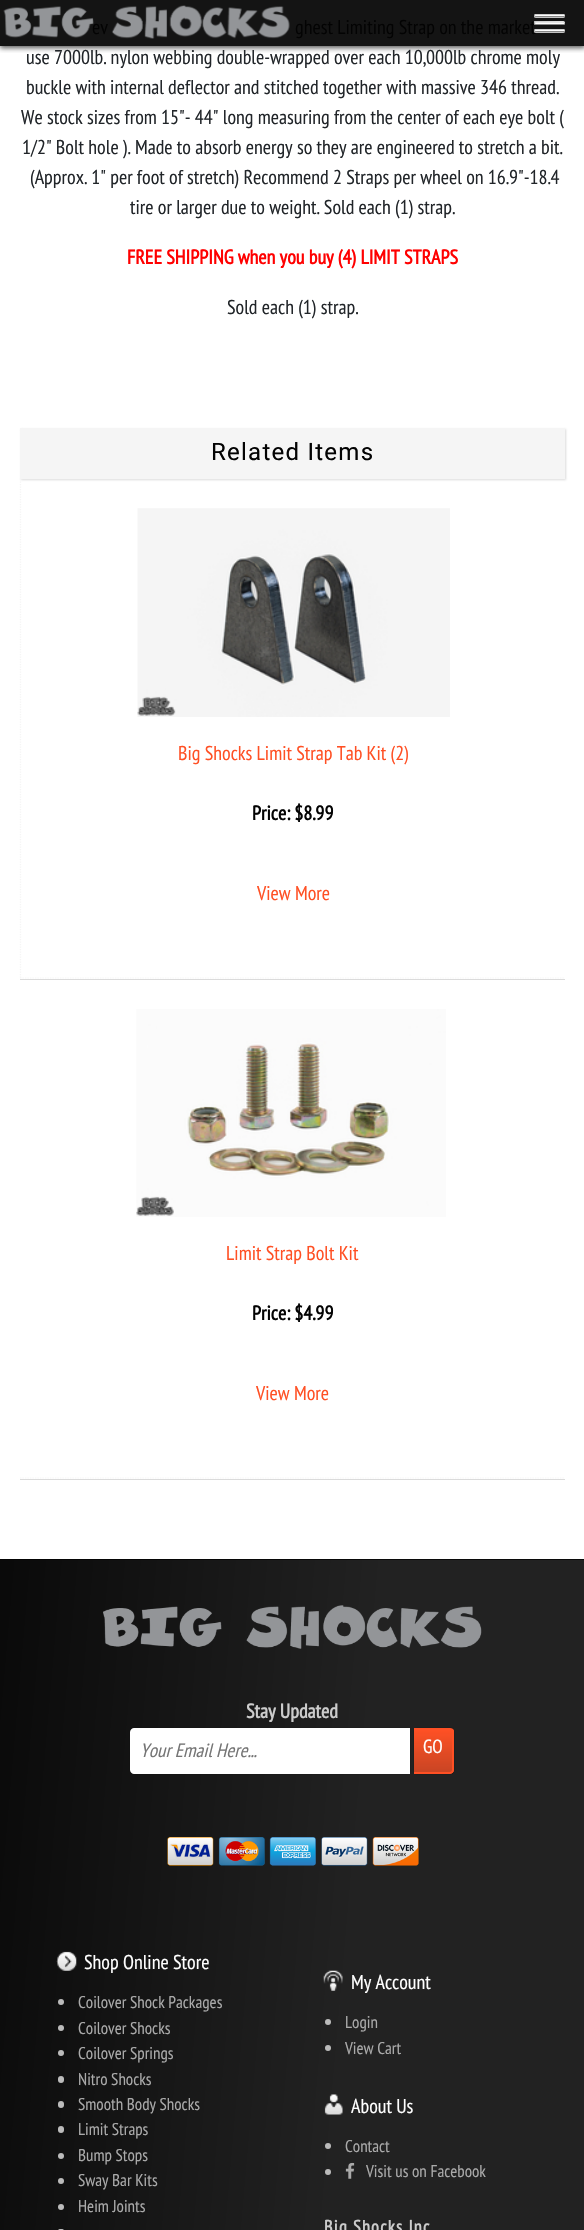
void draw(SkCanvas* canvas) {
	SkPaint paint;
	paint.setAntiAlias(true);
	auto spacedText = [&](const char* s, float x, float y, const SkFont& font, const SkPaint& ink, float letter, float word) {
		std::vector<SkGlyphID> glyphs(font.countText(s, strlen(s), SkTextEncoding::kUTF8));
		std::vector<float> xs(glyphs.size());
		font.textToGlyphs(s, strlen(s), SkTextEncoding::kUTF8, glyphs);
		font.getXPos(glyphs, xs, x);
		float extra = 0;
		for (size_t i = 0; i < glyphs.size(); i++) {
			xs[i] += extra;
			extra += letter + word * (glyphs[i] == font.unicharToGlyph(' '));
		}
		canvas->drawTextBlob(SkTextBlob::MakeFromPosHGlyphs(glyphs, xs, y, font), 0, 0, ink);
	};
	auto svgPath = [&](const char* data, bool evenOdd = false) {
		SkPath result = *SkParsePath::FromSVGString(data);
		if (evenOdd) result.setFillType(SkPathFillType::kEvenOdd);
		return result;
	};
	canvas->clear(0xffffffff);
	{
		const SkColor colors[] = {0xff000000, 0xff222222};
		const float stops[] = {0.12, 0.68};
		const SkPoint ends[] = {{-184, 609}, {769, 692}};
		paint.setShader(SkGradientShader::MakeLinear(ends, colors, stops, 2, SkTileMode::kClamp));
		paint.setAlpha(255);
	}
	canvas->drawRect(SkRect::MakeXYWH(0, 1560, 584, 670), paint);
	{
		const SkColor colors[] = {0xff000000, 0xff090909};
		const float stops[] = {0.12, 0.68};
		const SkPoint ends[] = {{-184, 609}, {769, 692}};
		paint.setShader(SkGradientShader::MakeLinear(ends, colors, stops, 2, SkTileMode::kClamp));
		paint.setAlpha(255);
	}
	canvas->drawRect(SkRect::MakeXYWH(0, 1559, 584, 1), paint);
	paint.setShader(nullptr);
	paint.setColor(0xff141414);
	canvas->drawRect(SkRect::MakeXYWH(0, 0, 584, 46), paint);
	canvas->save();
	canvas->clipRect(SkRect::MakeXYWH(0, 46, 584, 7));
	paint.setColor(0xa6000000);
	paint.setMaskFilter(SkMaskFilter::MakeBlur(kNormal_SkBlurStyle, 2.5));
	canvas->drawRect(SkRect::MakeXYWH(0, 1, 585, 47), paint);
	paint.setMaskFilter(nullptr);
	canvas->restore();
	SkFont f1(fontMgr->matchFamilyStyle("PT Sans Narrow", SkFontStyle::Normal()), 20);
	f1.setSubpixel(true);
	paint.setColor(0xff030303);
	canvas->drawString("ev", 92, 34, f1, paint);
	canvas->drawImageRect(SkImages::DeferredFromEncodedData(SkData::MakeFromFileName("img1.png")), SkRect::MakeXYWH(3, 5, 287, 34), SkSamplingOptions());
	paint.setColor(0xffffffff);
	canvas->drawRoundRect(SkRect::MakeXYWH(534, 14, 31, 4), 2, 2, paint);
	paint.setColor(0xffcccccc);
	canvas->drawPath(svgPath("M535.5 14L534.5 14.5L535 15H535.5H563C564 15 565 15.5 565 15.5V15L563.5 14Z"), paint);
	paint.setColor(0xff888888);
	canvas->drawPath(svgPath("M535 17.5H563C564 17.5 564.5 17 565 16.5V15.5L564.5 16H535.5L534 17Z"), paint);
	paint.setColor(0xffaaaaaa);
	canvas->drawPath(svgPath("M534 15.5L534.5 14.5L535 15V15.5L535.5 16L534 17Z"), paint);
	paint.setColor(0xff030303);
	canvas->drawString("ghest Limiting Strap on the market", 295, 34, f1, paint);
	paint.setColor(0xffffffff);
	canvas->drawRoundRect(SkRect::MakeXYWH(534, 21, 31, 4), 2, 2, paint);
	paint.setColor(0xffcccccc);
	canvas->drawPath(svgPath("M535.5 22.5L535 23L534 21.5L534.5 21L563.5 21.5L565 22.5V23L563 22.5ZM565 23H565Z", true), paint);
	paint.setColor(0xff888888);
	canvas->drawPath(svgPath("M535 25H563C564 25 564.5 24.5 565 24V23C565 23.5 564 24 563 24H535.5L535 23.5L534 24.5Z"), paint);
	paint.setColor(0xffaaaaaa);
	canvas->drawPath(svgPath("M534 23V21.5L535 23V23.5L534 24.5Z"), paint);
	paint.setColor(0xffffffff);
	canvas->drawRoundRect(SkRect::MakeXYWH(534, 29, 31, 4), 2, 2, paint);
	paint.setColor(0xffcccccc);
	canvas->drawPath(svgPath("M535.5 29L534.5 29.5L535 30H535.5H563C564 30 565 30.5 565 30.5V30L563.5 29Z"), paint);
	paint.setColor(0xff888888);
	canvas->drawPath(svgPath("M535 32.5H563C564 32.5 564.5 32 565 31.5V30.5L564.5 31H535.5L534 32Z"), paint);
	paint.setColor(0xffaaaaaa);
	canvas->drawPath(svgPath("M534 30.5L534.5 29.5L535 30V30.5L535.5 31L534 32Z"), paint);
	paint.setColor(0xff212529);
	canvas->drawString("use 7000lb. nylon webbing double-wrapped over each 10,000lb chrome moly", 26, 64, f1, paint);
	canvas->drawString("buckle with internal deflector and stitched together with massive 346 thread.", 26, 94, f1, paint);
	canvas->drawString("We stock sizes from 15\"- 44\" long measuring from the center of each eye bolt (", 21, 124, f1, paint);
	canvas->drawString("1/2\" Bolt hole ). Made to absorb energy so they are engineered to stretch a bit.", 22, 154, f1, paint);
	canvas->drawString("(Approx. 1\" per foot of stretch) Recommend 2 Straps per wheel on 16.9\"-18.4", 30, 184, f1, paint);
	canvas->drawString("tire or larger due to weight. Sold each (1) strap.", 130, 214, f1, paint);
	SkFont f2(fontMgr->matchFamilyStyle("PT Sans Narrow", SkFontStyle::Bold()), 20);
	f2.setSubpixel(true);
	paint.setColor(0xffff0000);
	canvas->drawString("FREE SHIPPING when you buy (4) LIMIT STRAPS", 127, 264, f2, paint);
	paint.setColor(0xff212529);
	canvas->drawString("Sold each (1) strap.", 227, 314, f1, paint);
	paint.setColor(0x99c3c3c3);
	paint.setMaskFilter(SkMaskFilter::MakeBlur(kNormal_SkBlurStyle, 1));
	canvas->drawRect(SkRect::MakeXYWH(21, 429, 545, 51), paint);
	paint.setMaskFilter(nullptr);
	paint.setColor(0xfff5f5f5);
	canvas->drawRect(SkRect::MakeXYWH(20, 428, 545, 51), paint);
	SkFont f3(fontMgr->matchFamilyStyle("Roboto", SkFontStyle::Normal()), 24);
	f3.setSubpixel(true);
	paint.setColor(0xff030303);
	spacedText("Related Items", 211, 460, f3, paint, 1.25, 0);
	paint.setColor(0xffdbdbdb);
	canvas->drawRect(SkRect::MakeXYWH(20, 979, 545, 1), paint);
	paint.setStroke(true);
	paint.setStrokeWidth(1.2);
	paint.setColor(0xfff5f5f5);
	paint.setPathEffect(SkDashPathEffect::Make({{1.25f, 1.25f}}, 0));
	canvas->drawPath(svgPath("M20 978H565"), paint);
	paint.setPathEffect(nullptr);
	paint.setPathEffect(SkDashPathEffect::Make({{1.25f, 1.25f}}, 0));
	canvas->drawPath(svgPath("M20.5 479V979"), paint);
	paint.setPathEffect(nullptr);
	canvas->drawImageRect(SkImages::DeferredFromEncodedData(SkData::MakeFromFileName("img2.png")), SkRect::MakeXYWH(137, 508, 313, 209), SkSamplingOptions());
	paint.setStroke(false);
	paint.setColor(0xffff5024);
	canvas->drawString("Big Shocks Limit Strap Tab Kit (2)", 178, 760, f1, paint);
	paint.setColor(0xff030303);
	canvas->drawString("Price: $8.99", 252, 820, f2, paint);
	paint.setColor(0xffff5024);
	canvas->drawString("View More", 257, 900, f1, paint);
	paint.setColor(0xffdbdbdb);
	canvas->drawRect(SkRect::MakeXYWH(20, 1479, 545, 1), paint);
	paint.setStroke(true);
	paint.setColor(0xfff5f5f5);
	paint.setPathEffect(SkDashPathEffect::Make({{1.25f, 1.25f}}, 0));
	canvas->drawPath(svgPath("M20 1478H565"), paint);
	paint.setPathEffect(nullptr);
	canvas->drawImageRect(SkImages::DeferredFromEncodedData(SkData::MakeFromFileName("img3.png")), SkRect::MakeXYWH(136, 1009, 310, 208), SkSamplingOptions());
	paint.setStroke(false);
	paint.setColor(0xffff5024);
	canvas->drawString("Limit Strap Bolt Kit", 226, 1260, f1, paint);
	paint.setColor(0xff030303);
	canvas->drawString("Price: $4.99", 252, 1320, f2, paint);
	paint.setColor(0xffff5024);
	canvas->drawString("View More", 256, 1400, f1, paint);
	canvas->drawImageRect(SkImages::DeferredFromEncodedData(SkData::MakeFromFileName("img4.png")), SkRect::MakeXYWH(103, 1605, 379, 44), SkSamplingOptions());
	paint.setColor(0xffcccccc);
	canvas->drawString("Stay Updated", 246, 1718, f2, paint);
	paint.setColor(0xff000000);
	paint.setMaskFilter(SkMaskFilter::MakeBlur(kNormal_SkBlurStyle, 0.5));
	canvas->drawRoundRect(SkRect::MakeXYWH(130, 1728, 280, 46), 4, 4, paint);
	paint.setMaskFilter(nullptr);
	paint.setColor(0xffffffff);
	canvas->drawPath(svgPath("M134 1728H410V1774H134C132 1774 130 1772 130 1770V1732C130 1730 132 1728 134 1728Z"), paint);
	SkFont f4(fontMgr->matchFamilyStyle("PT Sans Narrow", SkFontStyle::Italic()), 19.25);
	f4.setSubpixel(true);
	paint.setColor(0xff757575);
	canvas->drawString("Your Email Here...", 140, 1757, f4, paint);
	canvas->save();
	canvas->clipPath(svgPath("M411 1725H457V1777H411ZM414 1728H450C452 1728 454 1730 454 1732V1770C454 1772 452 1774 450 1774H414Z", true), true);
	paint.setColor(0xff000000);
	paint.setMaskFilter(SkMaskFilter::MakeBlur(kNormal_SkBlurStyle, 0.5));
	canvas->drawRoundRect(SkRect::MakeXYWH(414, 1728, 40, 46), 4, 4, paint);
	paint.setMaskFilter(nullptr);
	canvas->restore();
	canvas->save();
	canvas->clipPath(svgPath("M414 1728H450C452 1728 454 1730 454 1732V1770C454 1772 452 1774 450 1774H414Z"), true);
	{
		const SkColor colors[] = {0xffff5024, 0xbfff5024};
		const float stops[] = {0, 1};
		const SkPoint ends[] = {{433, 1729}, {433, 1773}};
		paint.setShader(SkGradientShader::MakeLinear(ends, colors, stops, 2, SkTileMode::kClamp));
		paint.setAlpha(255);
	}
	canvas->drawRect(SkRect::MakeXYWH(414, 1729, 40, 44), paint);
	canvas->restore();
	paint.setShader(nullptr);
	paint.setColor(0xffff5024);
	canvas->drawPath(svgPath("M414 1728H450C452 1728 454 1729 454 1731V1770C454 1772 452 1774 450 1774H414ZM414 1729H450C451 1729 452 1730 452 1731V1770C452 1771 451 1772 450 1772H414Z", true), paint);
	SkFont f5(fontMgr->matchFamilyStyle("PT Sans Narrow", SkFontStyle::Normal()), 19);
	f5.setSubpixel(true);
	paint.setColor(0xffffffff);
	canvas->drawString("GO", 423, 1753, f5, paint);
	canvas->drawImageRect(SkImages::DeferredFromEncodedData(SkData::MakeFromFileName("img5.png")), SkRect::MakeXYWH(167, 1837, 252, 29), SkSamplingOptions());
	canvas->drawImageRect(SkImages::DeferredFromEncodedData(SkData::MakeFromFileName("img6.png")), SkRect::MakeXYWH(56, 1951, 21, 20), SkSamplingOptions());
	canvas->drawString("Shop Online Store", 84, 1969, f1, paint);
	paint.setColor(0xffbbbbbb);
	canvas->drawCircle(61, 2002, 3, paint);
	SkFont f6(fontMgr->matchFamilyStyle("PT Sans Narrow", SkFontStyle::Normal()), 17);
	f6.setSubpixel(true);
	paint.setColor(0xffaaaaaa);
	canvas->drawString("Coilover Shock Packages", 78, 2008, f6, paint);
	paint.setColor(0xffbbbbbb);
	canvas->drawCircle(61, 2028, 3, paint);
	paint.setColor(0xffaaaaaa);
	canvas->drawString("Coilover Shocks", 78, 2034, f6, paint);
	paint.setColor(0xffbbbbbb);
	canvas->drawCircle(61, 2053, 3, paint);
	paint.setColor(0xffaaaaaa);
	canvas->drawString("Coilover Springs", 78, 2059, f6, paint);
	paint.setColor(0xffbbbbbb);
	canvas->drawRoundRect(SkRect::MakeXYWH(58, 2076, 6, 7), 3, 3, paint);
	paint.setColor(0xffaaaaaa);
	canvas->drawString("Nitro Shocks", 78, 2085, f6, paint);
	paint.setColor(0xffbbbbbb);
	canvas->drawRoundRect(SkRect::MakeXYWH(58, 2101, 6, 7), 3, 3, paint);
	paint.setColor(0xffaaaaaa);
	canvas->drawString("Smooth Body Shocks", 78, 2110, f6, paint);
	paint.setColor(0xffbbbbbb);
	canvas->drawRoundRect(SkRect::MakeXYWH(58, 2126, 6, 7), 3, 3, paint);
	paint.setColor(0xffaaaaaa);
	canvas->drawString("Limit Straps", 78, 2135, f6, paint);
	paint.setColor(0xffbbbbbb);
	canvas->drawCircle(61, 2156, 3, paint);
	paint.setColor(0xffaaaaaa);
	canvas->drawString("Bump Stops", 78, 2161, f6, paint);
	paint.setColor(0xffbbbbbb);
	canvas->drawCircle(61, 2181, 3, paint);
	paint.setColor(0xffaaaaaa);
	canvas->drawString("Sway Bar Kits", 78, 2186, f6, paint);
	paint.setColor(0xffbbbbbb);
	canvas->drawCircle(61, 2207, 3, paint);
	paint.setColor(0xffaaaaaa);
	canvas->drawString("Heim Joints", 78, 2212, f6, paint);
	paint.setColor(0xffbbbbbb);
	canvas->drawRoundRect(SkRect::MakeXYWH(58, 2229, 6, 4), 3, 3, paint);
	canvas->drawImageRect(SkImages::DeferredFromEncodedData(SkData::MakeFromFileName("img7.png")), SkRect::MakeXYWH(323, 1970, 20, 21), SkSamplingOptions());
	paint.setColor(0xffffffff);
	canvas->drawString("My Account", 351, 1989, f1, paint);
	paint.setColor(0xffbbbbbb);
	canvas->drawCircle(328, 2022, 3, paint);
	paint.setColor(0xffaaaaaa);
	canvas->drawString("Login", 345, 2028, f6, paint);
	paint.setColor(0xffbbbbbb);
	canvas->drawCircle(328, 2048, 3, paint);
	paint.setColor(0xffaaaaaa);
	canvas->drawString("View Cart", 345, 2054, f6, paint);
	canvas->drawImageRect(SkImages::DeferredFromEncodedData(SkData::MakeFromFileName("img8.png")), SkRect::MakeXYWH(324, 2094, 19, 21), SkSamplingOptions());
	paint.setColor(0xffffffff);
	canvas->drawString("About Us", 351, 2113, f1, paint);
	paint.setColor(0xffbbbbbb);
	canvas->drawCircle(328, 2146, 3, paint);
	paint.setColor(0xffaaaaaa);
	canvas->drawString("Contact", 345, 2152, f6, paint);
	paint.setColor(0xffbbbbbb);
	canvas->drawCircle(328, 2172, 3, paint);
	canvas->drawImageRect(SkImages::DeferredFromEncodedData(SkData::MakeFromFileName("img9.png")), SkRect::MakeXYWH(345, 2162, 10, 17), SkSamplingOptions());
	paint.setColor(0xffaaaaaa);
	canvas->drawString("Visit us on Facebook", 366, 2177, f6, paint);
	SkFont f7(fontMgr->matchFamilyStyle("PT Sans Narrow", SkFontStyle::Bold()), 18);
	f7.setSubpixel(true);
	paint.setColor(0xffcccccc);
	spacedText("Big Shocks Inc", 324, 2233, f7, paint, 1.25, 0);
}
